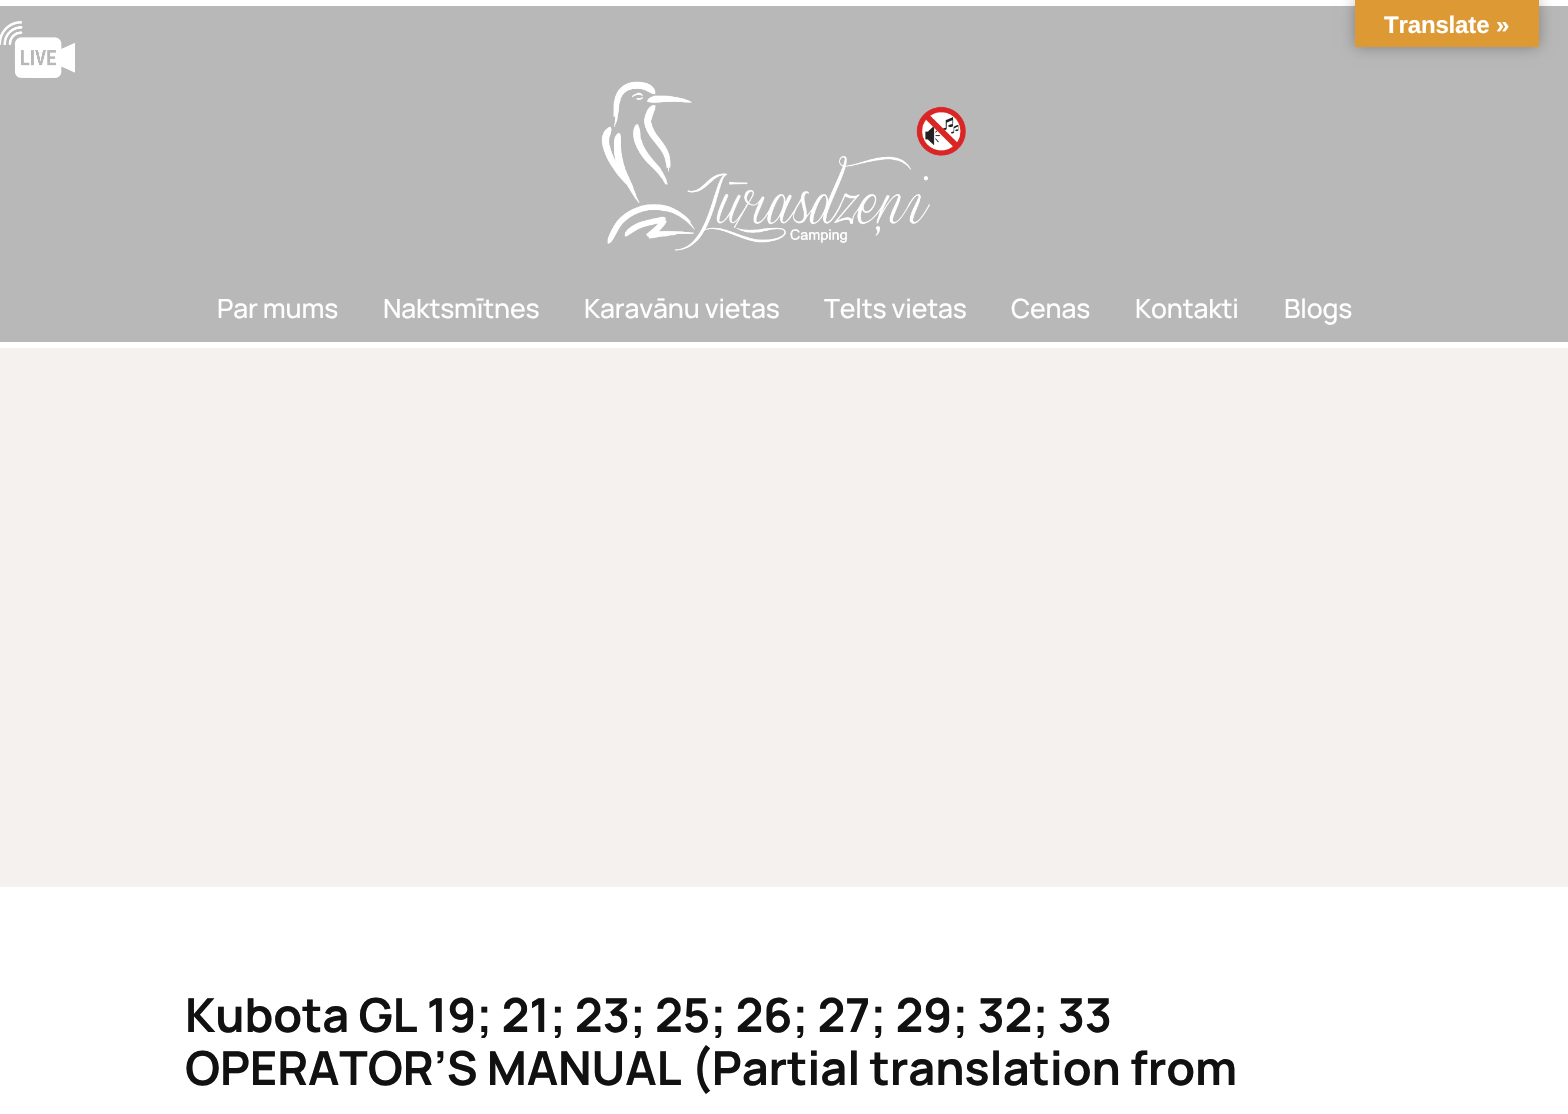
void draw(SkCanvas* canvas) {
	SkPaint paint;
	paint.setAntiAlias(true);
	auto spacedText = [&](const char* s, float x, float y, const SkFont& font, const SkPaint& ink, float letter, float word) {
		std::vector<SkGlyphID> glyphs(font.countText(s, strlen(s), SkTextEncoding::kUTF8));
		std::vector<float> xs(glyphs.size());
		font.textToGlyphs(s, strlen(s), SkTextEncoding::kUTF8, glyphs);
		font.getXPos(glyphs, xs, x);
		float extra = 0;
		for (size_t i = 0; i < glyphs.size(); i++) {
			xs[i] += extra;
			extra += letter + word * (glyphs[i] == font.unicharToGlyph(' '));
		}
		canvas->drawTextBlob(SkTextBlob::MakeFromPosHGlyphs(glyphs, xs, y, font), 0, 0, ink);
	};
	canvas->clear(0xffffffff);
	paint.setColor(0xffb8b8b8);
	canvas->drawRect(SkRect::MakeXYWH(0, 6, 1568, 336), paint);
	paint.setColor(0x4d000000);
	paint.setMaskFilter(SkMaskFilter::MakeBlur(kNormal_SkBlurStyle, 7));
	canvas->drawRect(SkRect::MakeXYWH(1355, 0, 184, 47), paint);
	paint.setMaskFilter(nullptr);
	paint.setColor(0xffdd9933);
	canvas->drawRect(SkRect::MakeXYWH(1355, 0, 184, 47), paint);
	SkFont f1(fontMgr->matchFamilyStyle("Liberation Sans", SkFontStyle::Bold()), 24);
	f1.setSubpixel(true);
	paint.setColor(0xffffffff);
	spacedText("Translate »", 1384, 33, f1, paint, -0.15, 0);
	canvas->drawImageRect(SkImages::DeferredFromEncodedData(SkData::MakeFromFileName("img1.png")), SkRect::MakeXYWH(0, 21, 75, 57), SkSamplingOptions());
	canvas->drawImageRect(SkImages::DeferredFromEncodedData(SkData::MakeFromFileName("img2.png")), SkRect::MakeXYWH(601, 81, 365, 170), SkSamplingOptions());
	SkFont f2(fontMgr->matchFamilyStyle("Manrope", SkFontStyle(500, SkFontStyle::kNormal_Width, SkFontStyle::kUpright_Slant)), 26.5);
	f2.setSubpixel(true);
	spacedText("Par mums", 217, 318, f2, paint, -0.15, 0);
	spacedText("Naktsmītnes", 383, 318, f2, paint, -0.15, 0);
	spacedText("Karavānu vietas", 584, 318, f2, paint, -0.15, 0);
	spacedText("Telts vietas", 824, 318, f2, paint, -0.15, 0);
	spacedText("Cenas", 1011, 318, f2, paint, -0.15, 0);
	spacedText("Kontakti", 1135, 318, f2, paint, -0.15, 0);
	spacedText("Blogs", 1284, 318, f2, paint, -0.15, 0);
	paint.setColor(0xfff4f1ee);
	canvas->drawRect(SkRect::MakeXYWH(0, 348, 1568, 539), paint);
	SkFont f3(fontMgr->matchFamilyStyle("Manrope", SkFontStyle::Bold()), 46.95);
	f3.setSubpixel(true);
	paint.setColor(0xff111111);
	spacedText("Kubota GL 19; 21; 23; 25; 26; 27; 29; 32; 33", 185, 1032, f3, paint, -0.15, 0);
	spacedText("OPERATOR’S MANUAL (Partial translation from", 185, 1085, f3, paint, -0.15, 0);
}
